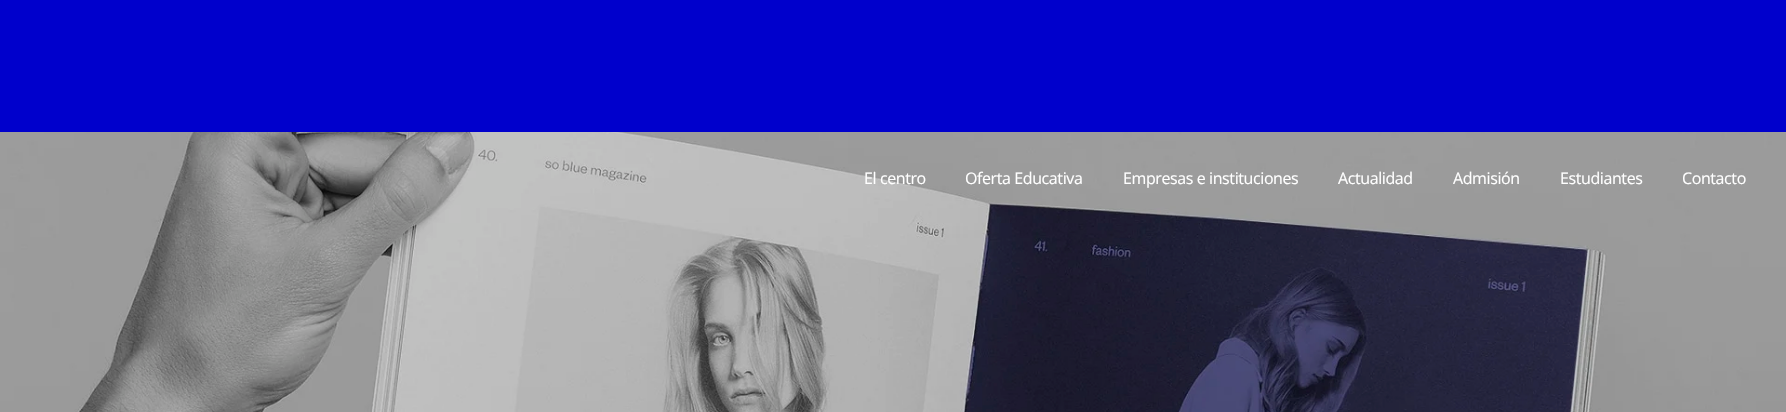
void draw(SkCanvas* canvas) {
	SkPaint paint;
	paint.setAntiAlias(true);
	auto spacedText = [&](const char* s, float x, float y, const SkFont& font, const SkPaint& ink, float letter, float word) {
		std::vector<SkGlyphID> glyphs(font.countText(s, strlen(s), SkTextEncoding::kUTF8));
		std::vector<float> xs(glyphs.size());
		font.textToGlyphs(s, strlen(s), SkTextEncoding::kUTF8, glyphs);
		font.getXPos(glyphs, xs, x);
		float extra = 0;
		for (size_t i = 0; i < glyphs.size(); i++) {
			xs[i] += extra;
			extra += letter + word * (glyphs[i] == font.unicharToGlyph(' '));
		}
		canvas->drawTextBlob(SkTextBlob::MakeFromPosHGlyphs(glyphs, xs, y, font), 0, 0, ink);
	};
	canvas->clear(0xff0000cc);
	canvas->drawImageRect(SkImages::DeferredFromEncodedData(SkData::MakeFromFileName("img1.png")), SkRect::MakeXYWH(0, 132, 1786, 280), SkSamplingOptions());
	SkFont f1(fontMgr->matchFamilyStyle("Open Sans", SkFontStyle::Normal()), 16);
	f1.setSubpixel(true);
	paint.setColor(0xffffffff);
	spacedText("El centro", 864, 184, f1, paint, -0.4, 0);
	spacedText("Oferta Educativa", 965, 184, f1, paint, -0.4, 0);
	spacedText("Empresas e instituciones", 1123, 184, f1, paint, -0.4, 0);
	spacedText("Actualidad", 1338, 184, f1, paint, -0.4, 0);
	spacedText("Admisión", 1453, 184, f1, paint, -0.4, 0);
	spacedText("Estudiantes", 1560, 184, f1, paint, -0.4, 0);
	spacedText("Contacto", 1682, 184, f1, paint, -0.4, 0);
}
